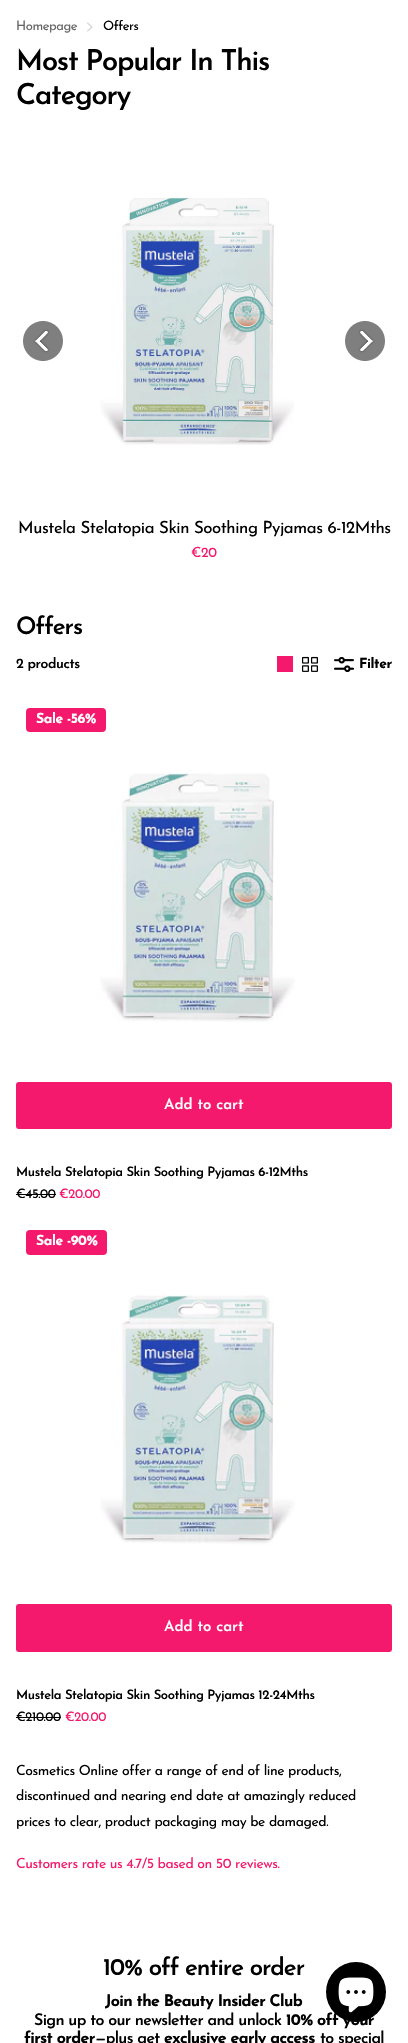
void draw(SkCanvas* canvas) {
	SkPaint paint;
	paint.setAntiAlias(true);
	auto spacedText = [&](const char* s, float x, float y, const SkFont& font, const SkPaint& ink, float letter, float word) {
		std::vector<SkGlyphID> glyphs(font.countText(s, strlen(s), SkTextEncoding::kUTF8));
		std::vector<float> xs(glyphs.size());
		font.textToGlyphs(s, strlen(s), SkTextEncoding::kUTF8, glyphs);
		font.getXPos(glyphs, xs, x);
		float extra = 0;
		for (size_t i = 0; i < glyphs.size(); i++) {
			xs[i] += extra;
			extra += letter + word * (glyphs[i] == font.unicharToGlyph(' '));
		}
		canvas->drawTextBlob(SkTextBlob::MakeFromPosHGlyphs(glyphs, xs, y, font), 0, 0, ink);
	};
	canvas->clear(0xffffffff);
	SkFont f1(fontMgr->matchFamilyStyle("Josefin Sans", SkFontStyle::Normal()), 13);
	f1.setSubpixel(true);
	paint.setColor(0xff666666);
	spacedText("Homepage", 16, 30, f1, paint, -0.42, 0);
	canvas->drawImageRect(SkImages::DeferredFromEncodedData(SkData::MakeFromFileName("img1.png")), SkRect::MakeXYWH(87, 22, 6, 10), SkSamplingOptions());
	paint.setColor(0xff000000);
	spacedText("Offers", 103, 30, f1, paint, -0.42, 0);
	SkFont f2(fontMgr->matchFamilyStyle("Josefin Sans", SkFontStyle(600, SkFontStyle::kNormal_Width, SkFontStyle::kUpright_Slant)), 29);
	f2.setSubpixel(true);
	spacedText("Most Popular In This", 16, 70, f2, paint, -1.2, 0);
	spacedText("Category", 16, 104, f2, paint, -1.2, 0);
	canvas->drawImageRect(SkImages::DeferredFromEncodedData(SkData::MakeFromFileName("img2.png")), SkRect::MakeXYWH(23, 321, 40, 40), SkSamplingOptions());
	canvas->drawImageRect(SkImages::DeferredFromEncodedData(SkData::MakeFromFileName("img3.png")), SkRect::MakeXYWH(345, 321, 40, 40), SkSamplingOptions());
	canvas->drawImageRect(SkImages::DeferredFromEncodedData(SkData::MakeFromFileName("img4.png")), SkRect::MakeXYWH(100, 197, 194, 248), SkSamplingOptions());
	SkFont f3(fontMgr->matchFamilyStyle("Josefin Sans", SkFontStyle::Normal()), 16.8);
	f3.setSubpixel(true);
	spacedText("Mustela Stelatopia Skin Soothing Pyjamas 6-12Mths", 18, 533, f3, paint, -0.42, 0);
	SkFont f4(fontMgr->matchFamilyStyle("Josefin Sans", SkFontStyle::Normal()), 14);
	f4.setSubpixel(true);
	paint.setColor(0xfff4196c);
	spacedText("€20", 191, 557, f4, paint, -0.42, 0);
	SkFont f5(fontMgr->matchFamilyStyle("Josefin Sans", SkFontStyle(600, SkFontStyle::kNormal_Width, SkFontStyle::kUpright_Slant)), 24);
	f5.setSubpixel(true);
	paint.setColor(0xff000000);
	spacedText("Offers", 16, 634, f5, paint, -1, 0);
	SkFont f6(fontMgr->matchFamilyStyle("Josefin Sans", SkFontStyle(600, SkFontStyle::kNormal_Width, SkFontStyle::kUpright_Slant)), 14);
	f6.setSubpixel(true);
	spacedText("2 products", 16, 668, f6, paint, -0.42, 0);
	paint.setColor(0xfff4196c);
	canvas->drawRect(SkRect::MakeXYWH(277, 656, 16, 16), paint);
	canvas->drawImageRect(SkImages::DeferredFromEncodedData(SkData::MakeFromFileName("img5.png")), SkRect::MakeXYWH(302, 656, 16, 16), SkSamplingOptions());
	canvas->drawImageRect(SkImages::DeferredFromEncodedData(SkData::MakeFromFileName("img6.png")), SkRect::MakeXYWH(334, 656, 21, 17), SkSamplingOptions());
	SkFont f7(fontMgr->matchFamilyStyle("Josefin Sans", SkFontStyle::Bold()), 14);
	f7.setSubpixel(true);
	paint.setColor(0xff000000);
	spacedText("Filter", 359, 668, f7, paint, -0.42, 0);
	paint.setColor(0xfff4196c);
	canvas->drawRoundRect(SkRect::MakeXYWH(26, 708, 80, 24), 4, 4, paint);
	paint.setColor(0xffffffff);
	spacedText("Sale -56%", 36, 723, f7, paint, -0.42, 0);
	canvas->drawImageRect(SkImages::DeferredFromEncodedData(SkData::MakeFromFileName("img7.png")), SkRect::MakeXYWH(100, 772, 195, 250), SkSamplingOptions());
	paint.setColor(0xfff4196c);
	canvas->drawRoundRect(SkRect::MakeXYWH(16, 1082, 376, 47), 3, 3, paint);
	SkFont f8(fontMgr->matchFamilyStyle("Josefin Sans", SkFontStyle(600, SkFontStyle::kNormal_Width, SkFontStyle::kUpright_Slant)), 15);
	f8.setSubpixel(true);
	paint.setColor(0xffffffff);
	canvas->drawString("Add to cart", 164, 1109, f8, paint);
	SkFont f9(fontMgr->matchFamilyStyle("Josefin Sans", SkFontStyle(600, SkFontStyle::kNormal_Width, SkFontStyle::kUpright_Slant)), 13);
	f9.setSubpixel(true);
	paint.setColor(0xff000000);
	spacedText("Mustela Stelatopia Skin Soothing Pyjamas 6-12Mths", 16, 1176, f9, paint, -0.4, 0);
	spacedText("€45.00", 16, 1198, f1, paint, -0.4, 0);
	paint.setColor(0xff020202);
	canvas->drawRect(SkRect::MakeXYWH(16, 1194, 40, 1), paint);
	paint.setColor(0xfff4196c);
	spacedText("€20.00", 59, 1198, f1, paint, -0.4, 0);
	canvas->drawRoundRect(SkRect::MakeXYWH(26, 1230, 81, 25), 4, 4, paint);
	paint.setColor(0xffffffff);
	spacedText("Sale -90%", 36, 1245, f7, paint, -0.42, 0);
	canvas->drawImageRect(SkImages::DeferredFromEncodedData(SkData::MakeFromFileName("img8.png")), SkRect::MakeXYWH(100, 1294, 195, 251), SkSamplingOptions());
	paint.setColor(0xfff4196c);
	canvas->drawRoundRect(SkRect::MakeXYWH(16, 1604, 376, 48), 3, 3, paint);
	paint.setColor(0xffffffff);
	canvas->drawString("Add to cart", 164, 1631, f8, paint);
	paint.setColor(0xff000000);
	spacedText("Mustela Stelatopia Skin Soothing Pyjamas 12-24Mths", 16, 1699, f9, paint, -0.4, 0);
	spacedText("€210.00", 16, 1721, f1, paint, -0.4, 0);
	paint.setColor(0xff020202);
	canvas->drawRect(SkRect::MakeXYWH(16, 1717, 45, 1), paint);
	paint.setColor(0xfff4196c);
	spacedText("€20.00", 65, 1721, f1, paint, -0.4, 0);
	paint.setColor(0xff000000);
	spacedText("Cosmetics Online offer a range of end of line products,", 16, 1775, f4, paint, -0.42, 0);
	spacedText("discontinued and nearing end date at amazingly reduced", 16, 1800, f4, paint, -0.42, 0);
	spacedText("prices to clear, product packaging may be damaged.", 16, 1826, f4, paint, -0.42, 0);
	paint.setColor(0xfff4196c);
	spacedText("Customers rate us 4.7/5 based on 50 reviews.", 16, 1868, f4, paint, -0.42, 0);
	paint.setColor(0xff000000);
	spacedText("10% off entire order", 103, 1975, f5, paint, -1, 0);
	SkFont f10(fontMgr->matchFamilyStyle("Josefin Sans", SkFontStyle::Bold()), 16);
	f10.setSubpixel(true);
	spacedText("Join the Beauty Insider Club", 105, 2006, f10, paint, -0.65, 0);
	SkFont f11(fontMgr->matchFamilyStyle("Josefin Sans", SkFontStyle(600, SkFontStyle::kNormal_Width, SkFontStyle::kUpright_Slant)), 16);
	f11.setSubpixel(true);
	spacedText("Sign up to our newsletter and unlock", 34, 2025, f11, paint, -0.65, 0);
	spacedText("10% off your", 286, 2025, f10, paint, -0.65, 0);
	spacedText("first order", 24, 2043, f10, paint, -0.65, 0);
	spacedText("—plus get", 95, 2043, f11, paint, -0.65, 0);
	spacedText("exclusive early access", 164, 2043, f10, paint, -0.65, 0);
	spacedText("to special", 320, 2043, f11, paint, -0.65, 0);
	canvas->drawCircle(356, 1992, 30, paint);
	canvas->drawImageRect(SkImages::DeferredFromEncodedData(SkData::MakeFromFileName("img9.png")), SkRect::MakeXYWH(338, 1977, 36, 36), SkSamplingOptions());
}
